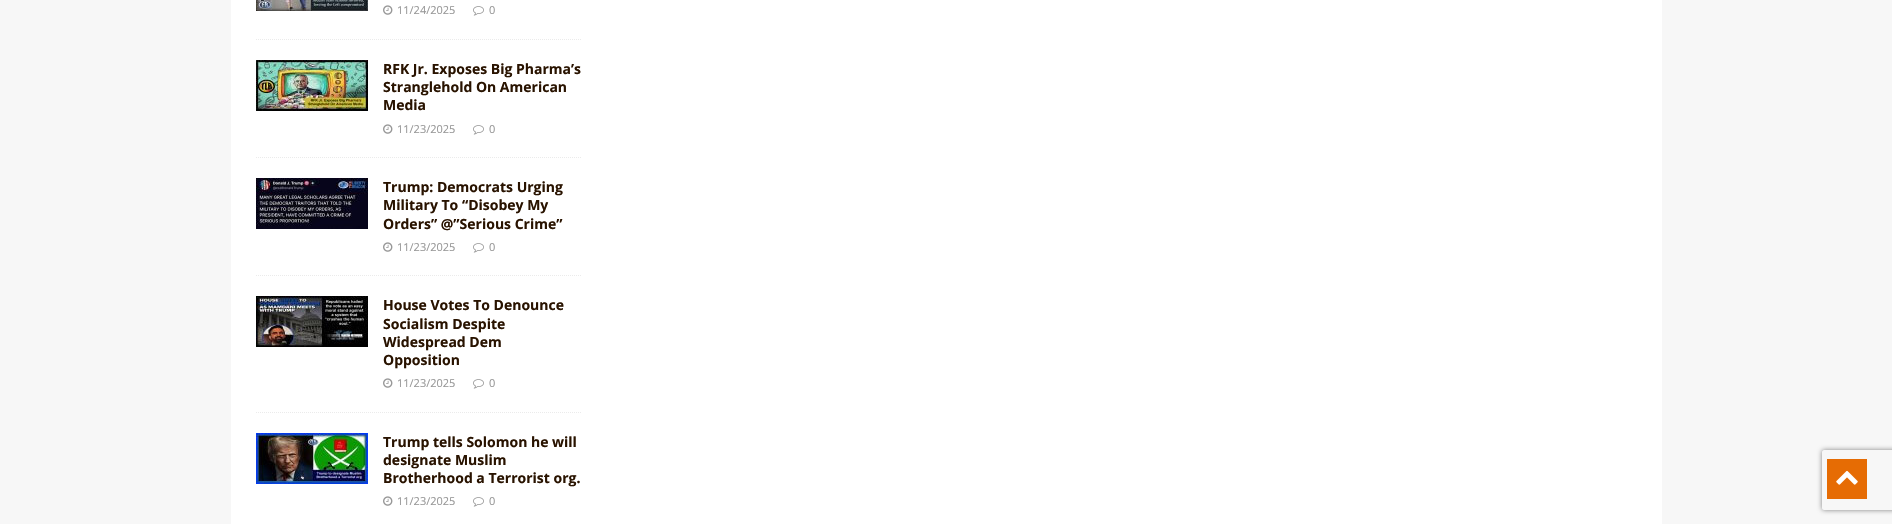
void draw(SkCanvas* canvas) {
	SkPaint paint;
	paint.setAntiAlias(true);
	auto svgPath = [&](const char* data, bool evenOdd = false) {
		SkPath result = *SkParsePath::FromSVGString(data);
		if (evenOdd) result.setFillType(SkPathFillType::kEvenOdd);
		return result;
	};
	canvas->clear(0xfff7f7f7);
	paint.setColor(0xffffffff);
	canvas->drawRect(SkRect::MakeXYWH(231, 0, 1431, 524), paint);
	paint.setStroke(true);
	paint.setStrokeWidth(1);
	paint.setColor(0xffebebeb);
	paint.setPathEffect(SkDashPathEffect::Make({{1, 1}}, 0));
	canvas->drawPath(svgPath("M256 39.5H582"), paint);
	paint.setPathEffect(nullptr);
	canvas->drawImageRect(SkImages::DeferredFromEncodedData(SkData::MakeFromFileName("img1.png")), SkRect::MakeXYWH(256, 0, 112, 11), SkSamplingOptions());
	canvas->drawImageRect(SkImages::DeferredFromEncodedData(SkData::MakeFromFileName("img2.png")), SkRect::MakeXYWH(383, 5, 10, 10), SkSamplingOptions());
	SkFont f1(fontMgr->matchFamilyStyle("Open Sans", SkFontStyle::Normal()), 11);
	f1.setSubpixel(true);
	paint.setStroke(false);
	paint.setColor(0xff979797);
	canvas->drawString("11/24/2025", 397, 14, f1, paint);
	canvas->drawImageRect(SkImages::DeferredFromEncodedData(SkData::MakeFromFileName("img3.png")), SkRect::MakeXYWH(473, 6, 11, 10), SkSamplingOptions());
	canvas->drawString("0", 489, 14, f1, paint);
	paint.setStroke(true);
	paint.setColor(0xffebebeb);
	paint.setPathEffect(SkDashPathEffect::Make({{1, 1}}, 0));
	canvas->drawPath(svgPath("M256 157.5H582"), paint);
	paint.setPathEffect(nullptr);
	canvas->drawImageRect(SkImages::DeferredFromEncodedData(SkData::MakeFromFileName("img4.png")), SkRect::MakeXYWH(256, 60, 112, 51), SkSamplingOptions());
	SkFont f2(fontMgr->matchFamilyStyle("Open Sans", SkFontStyle::Bold()), 14);
	f2.setSubpixel(true);
	paint.setStroke(false);
	paint.setColor(0xff291300);
	canvas->drawString("RFK Jr. Exposes Big Pharma’s", 383, 74, f2, paint);
	canvas->drawString("Stranglehold On American", 383, 92, f2, paint);
	canvas->drawString("Media", 383, 110, f2, paint);
	canvas->drawImageRect(SkImages::DeferredFromEncodedData(SkData::MakeFromFileName("img2.png")), SkRect::MakeXYWH(383, 124, 10, 10), SkSamplingOptions());
	paint.setColor(0xff979797);
	canvas->drawString("11/23/2025", 397, 133, f1, paint);
	canvas->drawImageRect(SkImages::DeferredFromEncodedData(SkData::MakeFromFileName("img3.png")), SkRect::MakeXYWH(473, 125, 11, 10), SkSamplingOptions());
	canvas->drawString("0", 489, 133, f1, paint);
	paint.setStroke(true);
	paint.setColor(0xffebebeb);
	paint.setPathEffect(SkDashPathEffect::Make({{1, 1}}, 0));
	canvas->drawPath(svgPath("M256 275.5H582"), paint);
	paint.setPathEffect(nullptr);
	canvas->drawImageRect(SkImages::DeferredFromEncodedData(SkData::MakeFromFileName("img5.png")), SkRect::MakeXYWH(256, 178, 112, 51), SkSamplingOptions());
	paint.setStroke(false);
	paint.setColor(0xff291300);
	canvas->drawString("Trump: Democrats Urging", 383, 192, f2, paint);
	canvas->drawString("Military To “Disobey My", 383, 210, f2, paint);
	canvas->drawString("Orders” @”Serious Crime”", 383, 229, f2, paint);
	canvas->drawImageRect(SkImages::DeferredFromEncodedData(SkData::MakeFromFileName("img2.png")), SkRect::MakeXYWH(383, 242, 10, 10), SkSamplingOptions());
	paint.setColor(0xff979797);
	canvas->drawString("11/23/2025", 397, 251, f1, paint);
	canvas->drawImageRect(SkImages::DeferredFromEncodedData(SkData::MakeFromFileName("img3.png")), SkRect::MakeXYWH(473, 243, 11, 10), SkSamplingOptions());
	canvas->drawString("0", 489, 251, f1, paint);
	paint.setStroke(true);
	paint.setColor(0xffebebeb);
	paint.setPathEffect(SkDashPathEffect::Make({{1, 1}}, 0));
	canvas->drawPath(svgPath("M256 412.5H582"), paint);
	paint.setPathEffect(nullptr);
	canvas->drawImageRect(SkImages::DeferredFromEncodedData(SkData::MakeFromFileName("img6.png")), SkRect::MakeXYWH(256, 296, 112, 51), SkSamplingOptions());
	paint.setStroke(false);
	paint.setColor(0xff291300);
	canvas->drawString("House Votes To Denounce", 383, 310, f2, paint);
	canvas->drawString("Socialism Despite", 383, 329, f2, paint);
	canvas->drawString("Widespread Dem", 383, 347, f2, paint);
	canvas->drawString("Opposition", 383, 365, f2, paint);
	canvas->drawImageRect(SkImages::DeferredFromEncodedData(SkData::MakeFromFileName("img2.png")), SkRect::MakeXYWH(383, 378, 10, 10), SkSamplingOptions());
	paint.setColor(0xff979797);
	canvas->drawString("11/23/2025", 397, 387, f1, paint);
	canvas->drawImageRect(SkImages::DeferredFromEncodedData(SkData::MakeFromFileName("img3.png")), SkRect::MakeXYWH(473, 379, 11, 10), SkSamplingOptions());
	canvas->drawString("0", 489, 387, f1, paint);
	canvas->drawImageRect(SkImages::DeferredFromEncodedData(SkData::MakeFromFileName("img7.png")), SkRect::MakeXYWH(256, 433, 112, 51), SkSamplingOptions());
	paint.setColor(0xff291300);
	canvas->drawString("Trump tells Solomon he will", 383, 447, f2, paint);
	canvas->drawString("designate Muslim", 383, 465, f2, paint);
	canvas->drawString("Brotherhood a Terrorist org.", 383, 483, f2, paint);
	canvas->drawImageRect(SkImages::DeferredFromEncodedData(SkData::MakeFromFileName("img2.png")), SkRect::MakeXYWH(383, 496, 10, 10), SkSamplingOptions());
	paint.setColor(0xff979797);
	canvas->drawString("11/23/2025", 397, 505, f1, paint);
	canvas->drawImageRect(SkImages::DeferredFromEncodedData(SkData::MakeFromFileName("img3.png")), SkRect::MakeXYWH(473, 497, 11, 10), SkSamplingOptions());
	canvas->drawString("0", 489, 505, f1, paint);
	canvas->save();
	canvas->clipPath(svgPath("M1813 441H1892V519H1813ZM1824 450H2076C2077 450 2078 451 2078 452V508C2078 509 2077 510 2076 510H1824C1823 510 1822 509 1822 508V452C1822 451 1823 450 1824 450Z", true), true);
	paint.setColor(0xff808080);
	paint.setMaskFilter(SkMaskFilter::MakeBlur(kNormal_SkBlurStyle, 2.5));
	canvas->drawRoundRect(SkRect::MakeXYWH(1822, 450, 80, 60), 2, 2, paint);
	paint.setMaskFilter(nullptr);
	canvas->restore();
	paint.setColor(0xffe66c04);
	canvas->drawRect(SkRect::MakeXYWH(1827, 459, 40, 40), paint);
	canvas->drawImageRect(SkImages::DeferredFromEncodedData(SkData::MakeFromFileName("img8.png")), SkRect::MakeXYWH(1836, 470, 22, 15), SkSamplingOptions());
}
